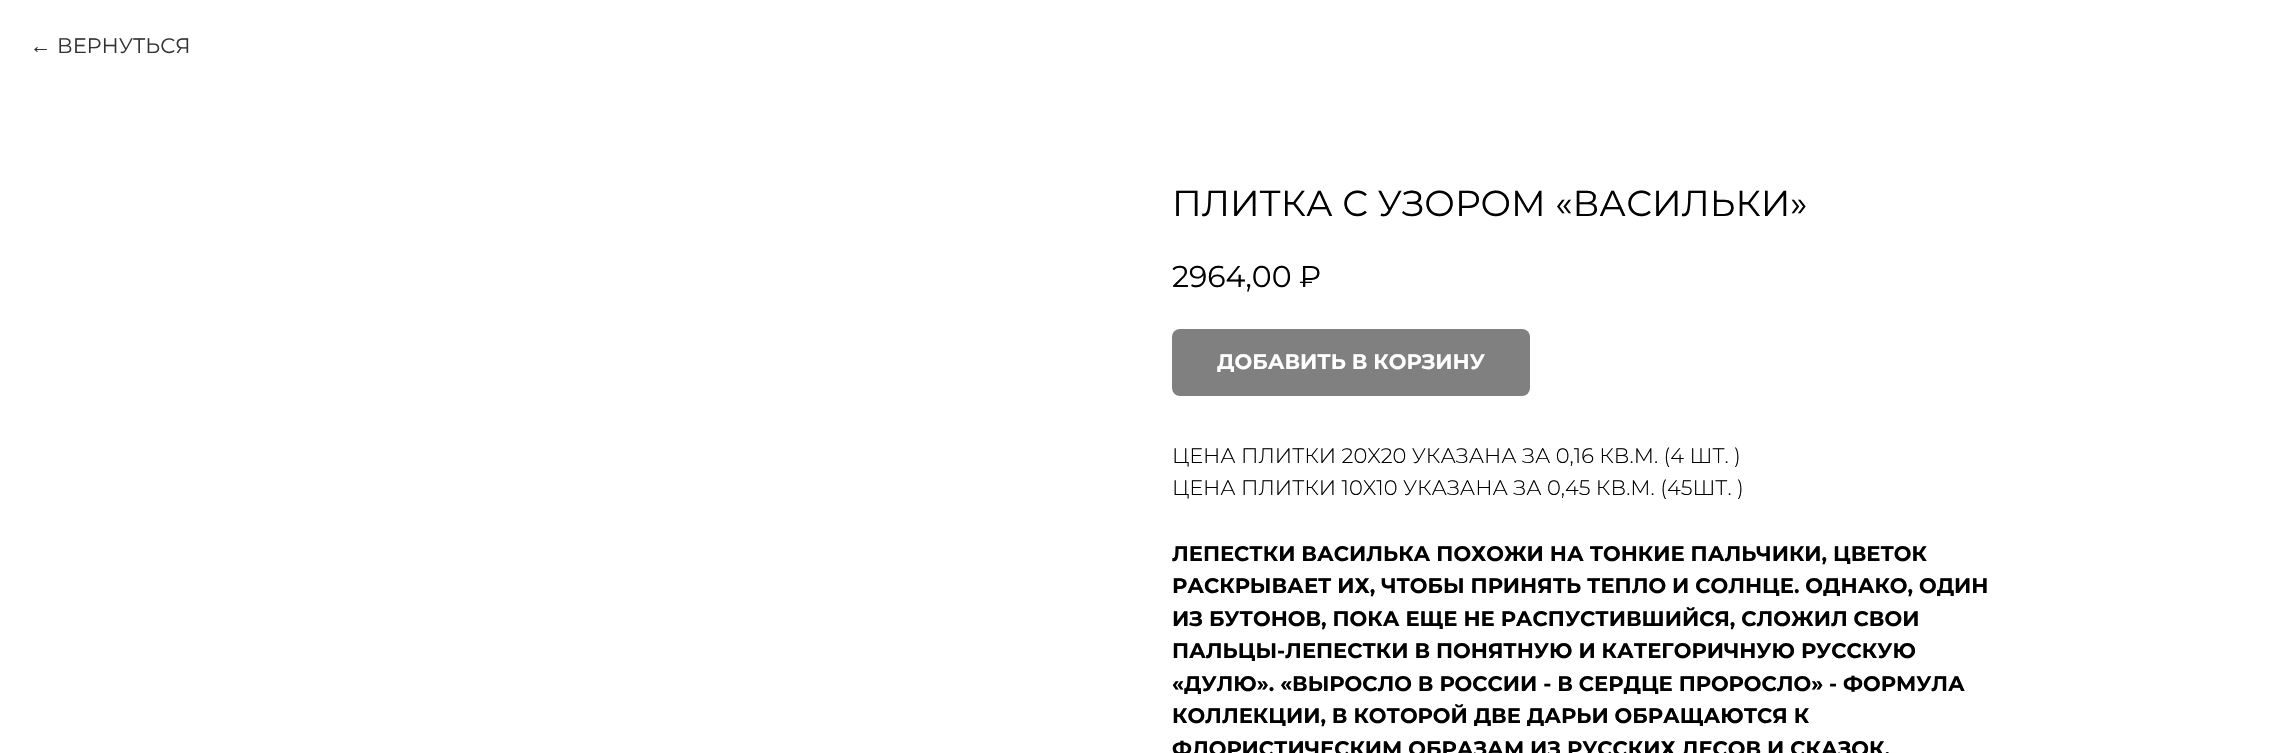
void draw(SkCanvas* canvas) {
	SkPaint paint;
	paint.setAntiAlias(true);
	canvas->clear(0xffffffff);
	SkFont f1(fontMgr->matchFamilyStyle("Liberation Sans", SkFontStyle::Normal()), 21);
	f1.setSubpixel(true);
	paint.setColor(0xff333333);
	canvas->drawString("←", 30, 53, f1, paint);
	SkFont f2(fontMgr->matchFamilyStyle("Montserrat", SkFontStyle::Normal()), 21);
	f2.setSubpixel(true);
	canvas->drawString("ВЕРНУТЬСЯ", 57, 53, f2, paint);
	SkFont f3(fontMgr->matchFamilyStyle("Montserrat", SkFontStyle::Normal()), 36);
	f3.setSubpixel(true);
	paint.setColor(0xff000000);
	canvas->drawString("ПЛИТКА С УЗОРОМ «ВАСИЛЬКИ»", 1172, 216, f3, paint);
	SkFont f4(fontMgr->matchFamilyStyle("Montserrat", SkFontStyle::Normal()), 30);
	f4.setSubpixel(true);
	canvas->drawString("2964,00", 1172, 287, f4, paint);
	canvas->drawString("₽", 1299, 287, f4, paint);
	paint.setColor(0xff808080);
	canvas->drawRoundRect(SkRect::MakeXYWH(1172, 329, 358, 67), 8, 8, paint);
	SkFont f5(fontMgr->matchFamilyStyle("Montserrat", SkFontStyle::Bold()), 21);
	f5.setSubpixel(true);
	paint.setColor(0xffffffff);
	canvas->drawString("ДОБАВИТЬ В КОРЗИНУ", 1217, 369, f5, paint);
	SkFont f6(fontMgr->matchFamilyStyle("Montserrat", SkFontStyle(300, SkFontStyle::kNormal_Width, SkFontStyle::kUpright_Slant)), 21);
	f6.setSubpixel(true);
	paint.setColor(0xff000000);
	canvas->drawString("ЦЕНА ПЛИТКИ 20X20 УКАЗАНА ЗА 0,16 КВ.М. (4 ШТ. )", 1172, 463, f6, paint);
	canvas->drawString("ЦЕНА ПЛИТКИ 10X10 УКАЗАНА ЗА 0,45 КВ.М. (45ШТ. )", 1172, 495, f6, paint);
	canvas->drawString("ЛЕПЕСТКИ ВАСИЛЬКА ПОХОЖИ НА ТОНКИЕ ПАЛЬЧИКИ, ЦВЕТОК", 1172, 561, f5, paint);
	canvas->drawString("РАСКРЫВАЕТ ИХ, ЧТОБЫ ПРИНЯТЬ ТЕПЛО И СОЛНЦЕ. ОДНАКО, ОДИН", 1172, 593, f5, paint);
	canvas->drawString("ИЗ БУТОНОВ, ПОКА ЕЩЕ НЕ РАСПУСТИВШИЙСЯ, СЛОЖИЛ СВОИ", 1172, 626, f5, paint);
	canvas->drawString("ПАЛЬЦЫ-ЛЕПЕСТКИ В ПОНЯТНУЮ И КАТЕГОРИЧНУЮ РУССКУЮ", 1172, 658, f5, paint);
	canvas->drawString("«ДУЛЮ». «ВЫРОСЛО В РОССИИ - В СЕРДЦЕ ПРОРОСЛО» - ФОРМУЛА", 1172, 691, f5, paint);
	canvas->drawString("КОЛЛЕКЦИИ, В КОТОРОЙ ДВЕ ДАРЬИ ОБРАЩАЮТСЯ К", 1172, 723, f5, paint);
	canvas->drawString("ФЛОРИСТИЧЕСКИМ ОБРАЗАМ ИЗ РУССКИХ ЛЕСОВ И СКАЗОК,", 1172, 756, f5, paint);
}
